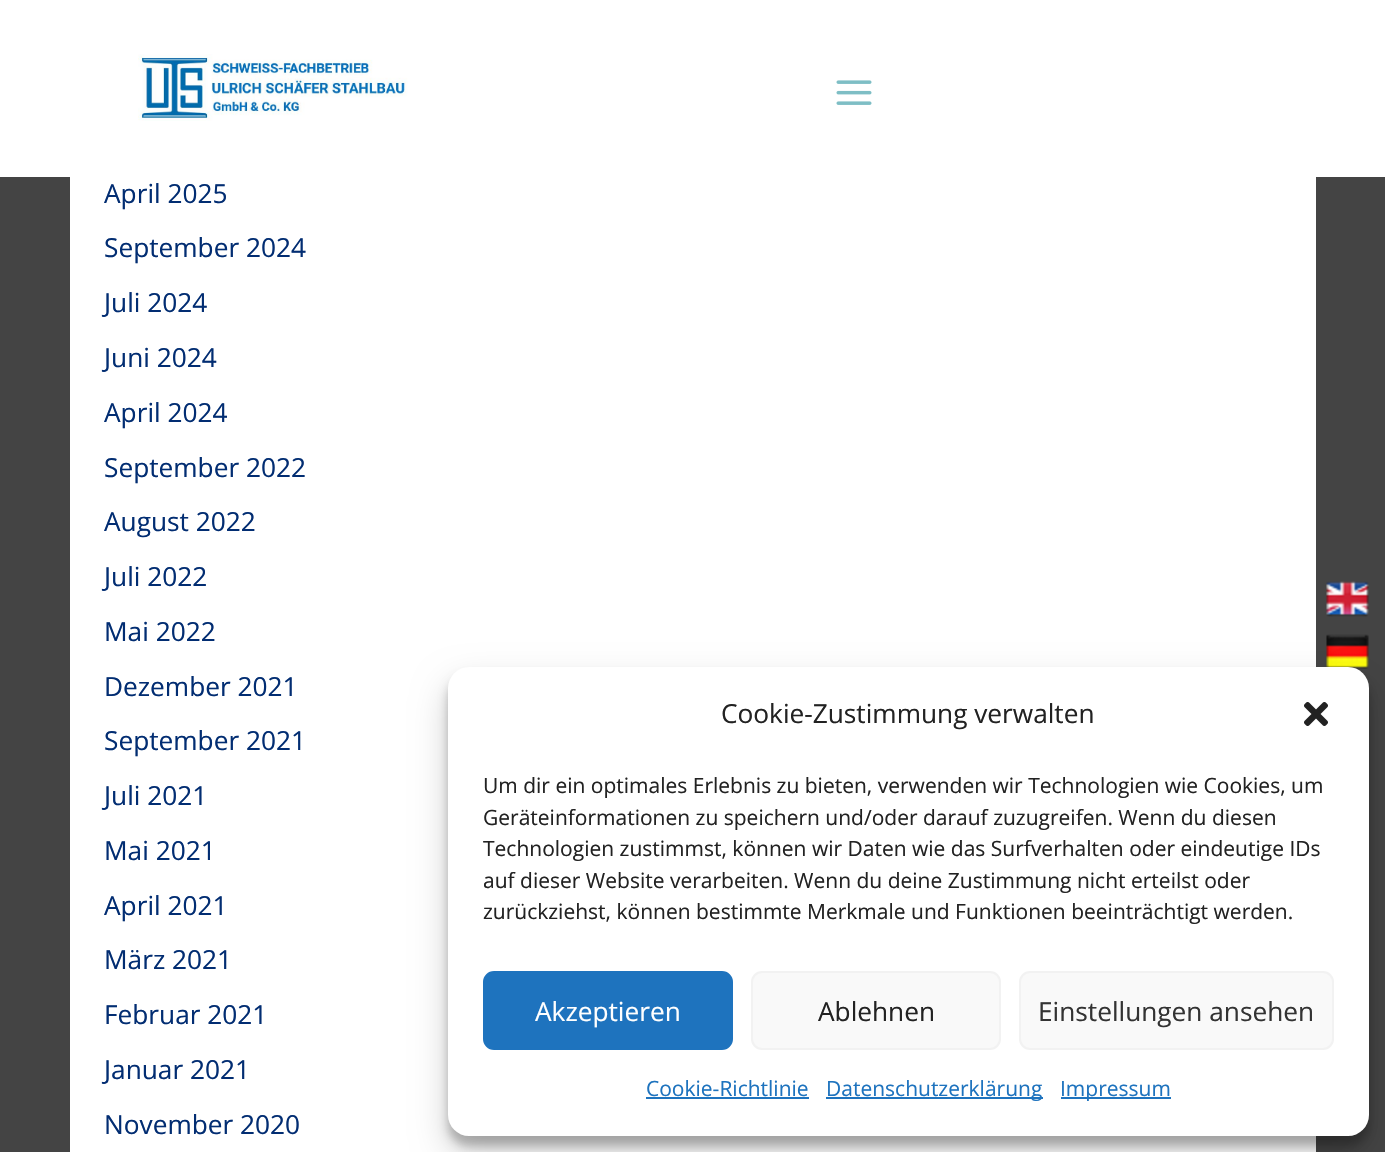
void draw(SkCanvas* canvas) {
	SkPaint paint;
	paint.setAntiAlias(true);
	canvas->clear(0xff444444);
	paint.setColor(0xffffffff);
	canvas->drawRect(SkRect::MakeXYWH(0, 0, 1385, 177), paint);
	canvas->drawImageRect(SkImages::DeferredFromEncodedData(SkData::MakeFromFileName("img1.png")), SkRect::MakeXYWH(138, 54, 270, 67), SkSamplingOptions());
	canvas->drawImageRect(SkImages::DeferredFromEncodedData(SkData::MakeFromFileName("img2.png")), SkRect::MakeXYWH(836, 80, 36, 25), SkSamplingOptions());
	canvas->drawRect(SkRect::MakeXYWH(70, 177, 1246, 975), paint);
	SkFont f1(fontMgr->matchFamilyStyle("Open Sans", SkFontStyle::Normal()), 26.25);
	f1.setSubpixel(true);
	paint.setColor(0xff022d72);
	canvas->drawString("April 2025", 104, 203, f1, paint);
	canvas->drawString("September 2024", 104, 257, f1, paint);
	canvas->drawString("Juli 2024", 104, 312, f1, paint);
	canvas->drawString("Juni 2024", 104, 367, f1, paint);
	canvas->drawString("April 2024", 104, 422, f1, paint);
	canvas->drawString("September 2022", 104, 477, f1, paint);
	canvas->drawString("August 2022", 104, 531, f1, paint);
	canvas->drawString("Juli 2022", 104, 586, f1, paint);
	canvas->drawString("Mai 2022", 104, 641, f1, paint);
	canvas->drawString("Dezember 2021", 104, 696, f1, paint);
	canvas->drawString("September 2021", 104, 750, f1, paint);
	canvas->drawString("Juli 2021", 104, 805, f1, paint);
	canvas->drawString("Mai 2021", 104, 860, f1, paint);
	canvas->drawString("April 2021", 104, 915, f1, paint);
	canvas->drawString("März 2021", 104, 969, f1, paint);
	canvas->drawString("Februar 2021", 104, 1024, f1, paint);
	canvas->drawString("Januar 2021", 104, 1079, f1, paint);
	canvas->drawString("November 2020", 104, 1134, f1, paint);
	canvas->drawImageRect(SkImages::DeferredFromEncodedData(SkData::MakeFromFileName("img3.png")), SkRect::MakeXYWH(1326, 581, 43, 36), SkSamplingOptions());
	canvas->drawImageRect(SkImages::DeferredFromEncodedData(SkData::MakeFromFileName("img4.png")), SkRect::MakeXYWH(1326, 634, 43, 35), SkSamplingOptions());
	paint.setColor(0x3b000000);
	paint.setMaskFilter(SkMaskFilter::MakeBlur(kNormal_SkBlurStyle, 5));
	canvas->drawRoundRect(SkRect::MakeXYWH(448, 677, 921, 469), 21, 21, paint);
	paint.setMaskFilter(nullptr);
	paint.setColor(0x30000000);
	paint.setMaskFilter(SkMaskFilter::MakeBlur(kNormal_SkBlurStyle, 17.5));
	canvas->drawRoundRect(SkRect::MakeXYWH(448, 684, 921, 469), 21, 21, paint);
	paint.setMaskFilter(nullptr);
	paint.setColor(0xffffffff);
	canvas->drawRoundRect(SkRect::MakeXYWH(448, 667, 921, 469), 21, 21, paint);
	paint.setColor(0xff222222);
	canvas->drawString("Cookie-Zustimmung verwalten", 721, 723, f1, paint);
	canvas->drawImageRect(SkImages::DeferredFromEncodedData(SkData::MakeFromFileName("img5.png")), SkRect::MakeXYWH(1304, 702, 24, 24), SkSamplingOptions());
	SkFont f2(fontMgr->matchFamilyStyle("Open Sans", SkFontStyle::Normal()), 21);
	f2.setSubpixel(true);
	canvas->drawString("Um dir ein optimales Erlebnis zu bieten, verwenden wir Technologien wie Cookies, um", 483, 793, f2, paint);
	canvas->drawString("Geräteinformationen zu speichern und/oder darauf zuzugreifen. Wenn du diesen", 483, 825, f2, paint);
	canvas->drawString("Technologien zustimmst, können wir Daten wie das Surfverhalten oder eindeutige IDs", 483, 856, f2, paint);
	canvas->drawString("auf dieser Website verarbeiten. Wenn du deine Zustimmung nicht erteilst oder", 483, 888, f2, paint);
	canvas->drawString("zurückziehst, können bestimmte Merkmale und Funktionen beeinträchtigt werden.", 483, 919, f2, paint);
	paint.setColor(0xff1e73be);
	canvas->drawRoundRect(SkRect::MakeXYWH(484, 972, 248, 77), 10, 10, paint);
	paint.setStroke(true);
	paint.setStrokeWidth(2);
	canvas->drawRoundRect(SkRect::MakeXYWH(484, 972, 248, 77), 10, 10, paint);
	paint.setStroke(false);
	paint.setColor(0xffffffff);
	canvas->drawString("Akzeptieren", 535, 1021, f1, paint);
	paint.setColor(0xfff9f9f9);
	canvas->drawRoundRect(SkRect::MakeXYWH(752, 972, 248, 77), 10, 10, paint);
	paint.setStroke(true);
	paint.setColor(0xfff2f2f2);
	canvas->drawRoundRect(SkRect::MakeXYWH(752, 972, 248, 77), 10, 10, paint);
	paint.setStroke(false);
	paint.setColor(0xff222222);
	canvas->drawString("Ablehnen", 818, 1021, f1, paint);
	paint.setColor(0xfff9f9f9);
	canvas->drawRoundRect(SkRect::MakeXYWH(1020, 972, 313, 77), 10, 10, paint);
	paint.setStroke(true);
	paint.setColor(0xfff2f2f2);
	canvas->drawRoundRect(SkRect::MakeXYWH(1020, 972, 313, 77), 10, 10, paint);
	paint.setStroke(false);
	paint.setColor(0xff333333);
	canvas->drawString("Einstellungen ansehen", 1038, 1021, f1, paint);
	paint.setColor(0xff1e73be);
	canvas->drawString("Cookie-Richtlinie", 646, 1096, f2, paint);
	canvas->drawRect(SkRect::MakeXYWH(646, 1097, 163, 2), paint);
	canvas->drawRect(SkRect::MakeXYWH(826, 1097, 217, 2), paint);
	canvas->drawString("Datenschutzerklärung", 826, 1096, f2, paint);
	canvas->drawRect(SkRect::MakeXYWH(1061, 1097, 110, 2), paint);
	canvas->drawString("Impressum", 1060, 1096, f2, paint);
}
